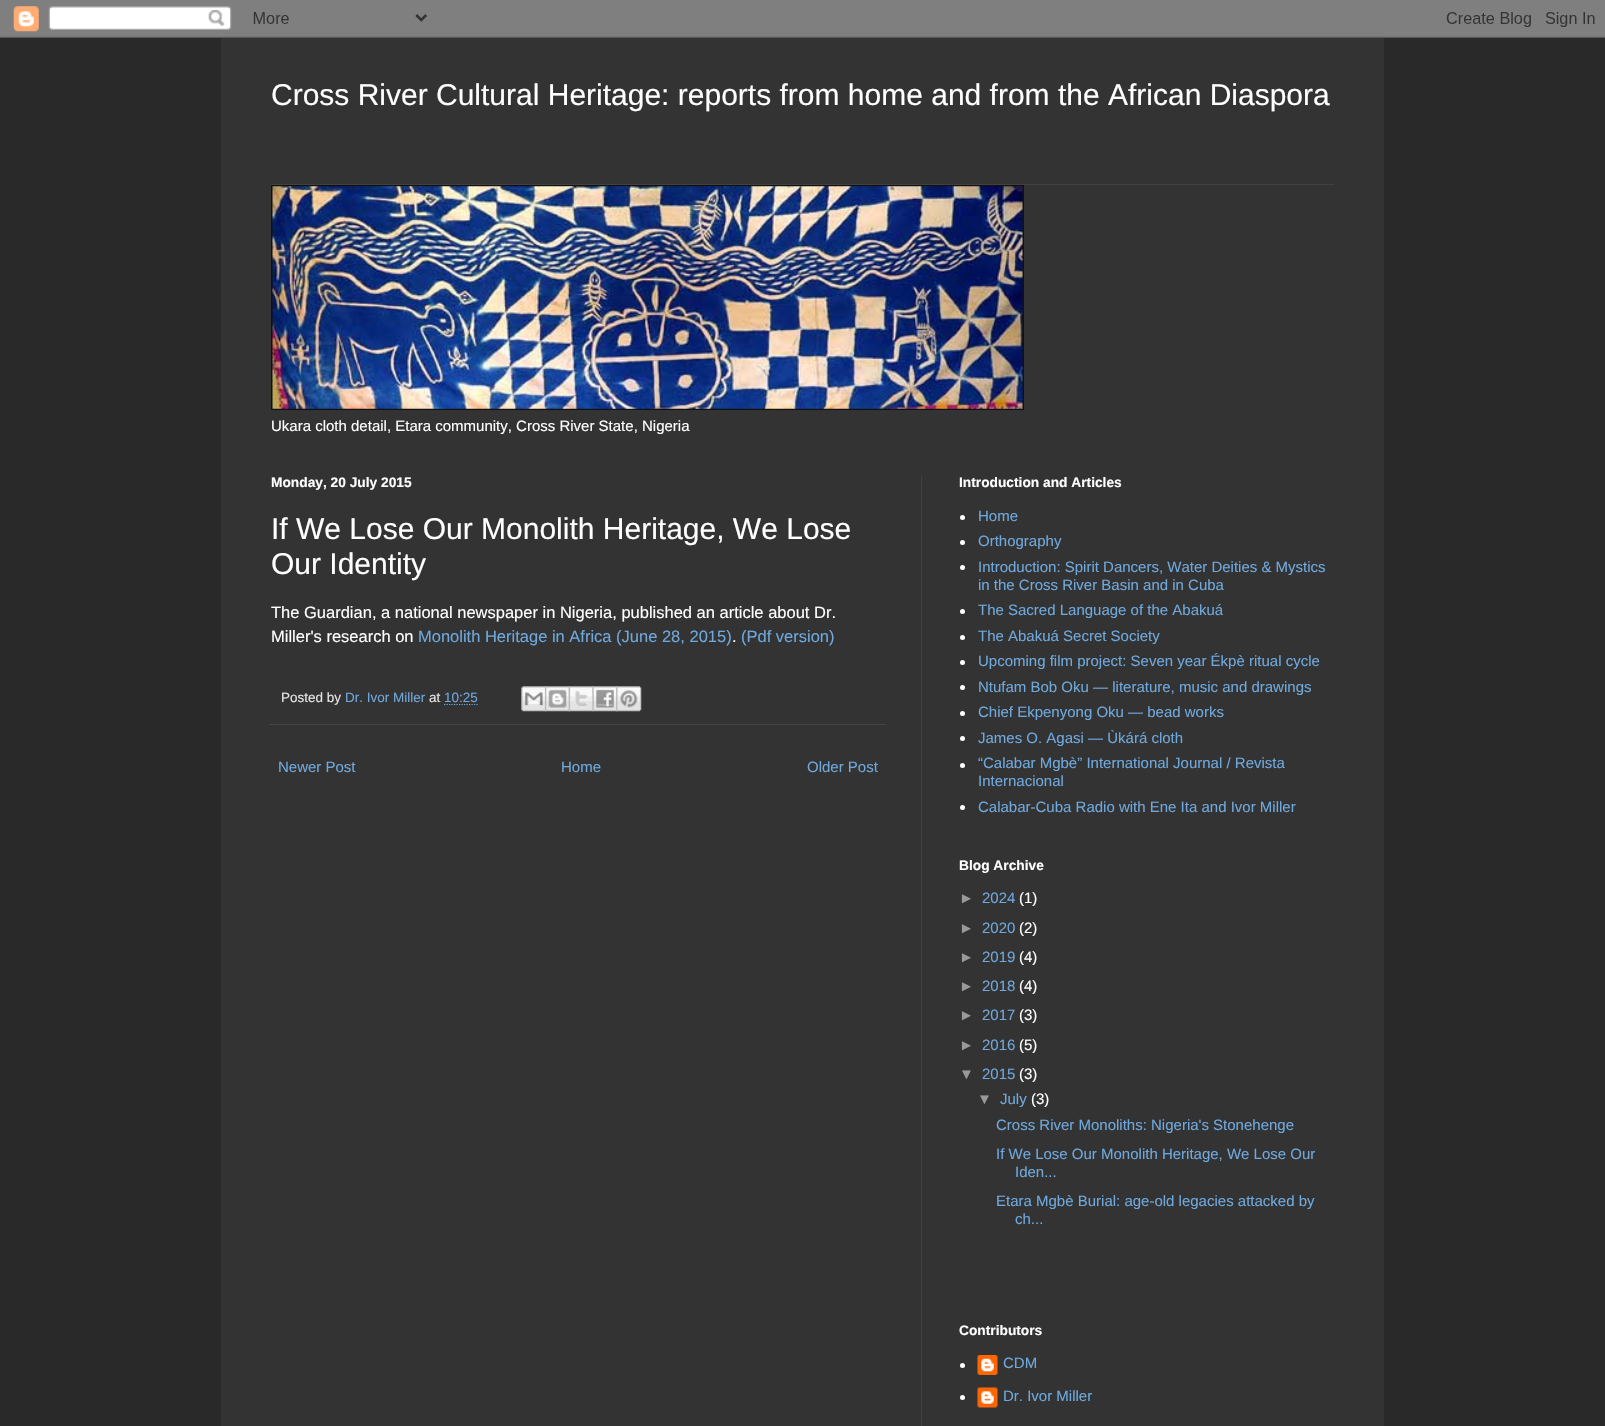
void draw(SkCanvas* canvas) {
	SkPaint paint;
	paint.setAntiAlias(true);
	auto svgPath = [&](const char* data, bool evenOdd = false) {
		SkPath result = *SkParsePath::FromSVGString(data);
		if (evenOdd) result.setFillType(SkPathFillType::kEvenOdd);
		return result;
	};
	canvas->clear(0xff292929);
	canvas->drawImageRect(SkImages::DeferredFromEncodedData(SkData::MakeFromFileName("img1.png")), SkRect::MakeXYWH(0, 0, 1605, 38), SkSamplingOptions());
	paint.setColor(0xff333333);
	canvas->drawRect(SkRect::MakeXYWH(221, 38, 1163, 1388), paint);
	SkFont f1(fontMgr->matchFamilyStyle("Liberation Sans", SkFontStyle::Normal()), 30);
	f1.setSubpixel(true);
	paint.setColor(0xffffffff);
	canvas->drawString("Cross River Cultural Heritage: reports from home and from the African Diaspora", 271, 105, f1, paint);
	paint.setColor(0xff404040);
	canvas->drawRect(SkRect::MakeXYWH(271, 184, 1063, 1), paint);
	paint.setColor(0xff111111);
	canvas->drawRect(SkRect::MakeXYWH(271, 185, 753, 225), paint);
	canvas->drawImageRect(SkImages::DeferredFromEncodedData(SkData::MakeFromFileName("img2.png")), SkRect::MakeXYWH(272, 186, 751, 223), SkSamplingOptions());
	SkFont f2(fontMgr->matchFamilyStyle("Liberation Sans", SkFontStyle::Normal()), 15);
	f2.setSubpixel(true);
	paint.setColor(0xffffffff);
	canvas->drawString("Ukara cloth detail, Etara community, Cross River State, Nigeria", 271, 431, f2, paint);
	paint.setColor(0xff404040);
	canvas->drawRect(SkRect::MakeXYWH(921, 475, 1, 951), paint);
	SkFont f3(fontMgr->matchFamilyStyle("Liberation Sans", SkFontStyle::Bold()), 13.75);
	f3.setSubpixel(true);
	paint.setColor(0xffffffff);
	canvas->drawString("Monday, 20 July 2015", 271, 487, f3, paint);
	canvas->drawString("If We Lose Our Monolith Heritage, We Lose", 271, 539, f1, paint);
	canvas->drawString("Our Identity", 271, 574, f1, paint);
	SkFont f4(fontMgr->matchFamilyStyle("Liberation Sans", SkFontStyle::Normal()), 16.5);
	f4.setSubpixel(true);
	canvas->drawString("The Guardian, a national newspaper in Nigeria, published an article about Dr.", 271, 618, f4, paint);
	canvas->drawString("Miller's research on", 271, 642, f4, paint);
	paint.setColor(0xff6fa8dc);
	canvas->drawString("Monolith Heritage in Africa (June 28, 2015)", 418, 642, f4, paint);
	paint.setColor(0xffffffff);
	canvas->drawString(".", 732, 642, f4, paint);
	paint.setColor(0xff6fa8dc);
	canvas->drawString("(Pdf version)", 741, 642, f4, paint);
	paint.setColor(0xff444444);
	canvas->drawRect(SkRect::MakeXYWH(269, 724, 617, 1), paint);
	SkFont f5(fontMgr->matchFamilyStyle("Liberation Sans", SkFontStyle::Normal()), 13.5);
	f5.setSubpixel(true);
	paint.setColor(0xffe5e5e5);
	canvas->drawString("Posted by", 281, 702, f5, paint);
	paint.setColor(0xff6fa8dc);
	canvas->drawString("Dr. Ivor Miller", 345, 702, f5, paint);
	paint.setColor(0xffe5e5e5);
	canvas->drawString("at", 429, 702, f5, paint);
	paint.setColor(0xff6fa8dc);
	canvas->drawString("10:25", 444, 702, f5, paint);
	paint.setStroke(true);
	paint.setStrokeWidth(1.2);
	paint.setPathEffect(SkDashPathEffect::Make({{1.25f, 1.25f}}, 0));
	canvas->drawPath(svgPath("M444 704.5H478"), paint);
	paint.setPathEffect(nullptr);
	canvas->drawImageRect(SkImages::DeferredFromEncodedData(SkData::MakeFromFileName("img3.png")), SkRect::MakeXYWH(521, 686, 26, 26), SkSamplingOptions());
	canvas->drawImageRect(SkImages::DeferredFromEncodedData(SkData::MakeFromFileName("img4.png")), SkRect::MakeXYWH(545, 686, 25, 26), SkSamplingOptions());
	canvas->drawImageRect(SkImages::DeferredFromEncodedData(SkData::MakeFromFileName("img5.png")), SkRect::MakeXYWH(568, 686, 26, 26), SkSamplingOptions());
	canvas->drawImageRect(SkImages::DeferredFromEncodedData(SkData::MakeFromFileName("img6.png")), SkRect::MakeXYWH(592, 686, 26, 26), SkSamplingOptions());
	canvas->drawImageRect(SkImages::DeferredFromEncodedData(SkData::MakeFromFileName("img7.png")), SkRect::MakeXYWH(616, 686, 26, 26), SkSamplingOptions());
	paint.setStroke(false);
	canvas->drawString("Newer Post", 278, 772, f2, paint);
	canvas->drawString("Home", 561, 772, f2, paint);
	canvas->drawString("Older Post", 807, 772, f2, paint);
	paint.setColor(0xffffffff);
	canvas->drawString("Introduction and Articles", 959, 487, f3, paint);
	canvas->drawCircle(962.5, 517.5, 2.5, paint);
	paint.setColor(0xff6fa8dc);
	canvas->drawString("Home", 978, 521, f2, paint);
	paint.setColor(0xffffffff);
	canvas->drawCircle(962.5, 542.5, 2.5, paint);
	paint.setColor(0xff6fa8dc);
	canvas->drawString("Orthography", 978, 546, f2, paint);
	paint.setColor(0xffffffff);
	canvas->drawCircle(962.5, 567.5, 2.5, paint);
	paint.setColor(0xff6fa8dc);
	canvas->drawString("Introduction: Spirit Dancers, Water Deities & Mystics", 978, 572, f2, paint);
	canvas->drawString("in the Cross River Basin and in Cuba", 978, 590, f2, paint);
	paint.setColor(0xffffffff);
	canvas->drawCircle(962.5, 611.5, 2.5, paint);
	paint.setColor(0xff6fa8dc);
	canvas->drawString("The Sacred Language of the Abakuá", 978, 615, f2, paint);
	paint.setColor(0xffffffff);
	canvas->drawCircle(962.5, 637.5, 2.5, paint);
	paint.setColor(0xff6fa8dc);
	canvas->drawString("The Abakuá Secret Society", 978, 641, f2, paint);
	paint.setColor(0xffffffff);
	canvas->drawCircle(962.5, 662.5, 2.5, paint);
	paint.setColor(0xff6fa8dc);
	canvas->drawString("Upcoming film project: Seven year Ékpè ritual cycle", 978, 666, f2, paint);
	paint.setColor(0xffffffff);
	canvas->drawCircle(962.5, 687.5, 2.5, paint);
	paint.setColor(0xff6fa8dc);
	canvas->drawString("Ntufam Bob Oku — literature, music and drawings", 978, 692, f2, paint);
	paint.setColor(0xffffffff);
	canvas->drawCircle(962.5, 713.5, 2.5, paint);
	paint.setColor(0xff6fa8dc);
	canvas->drawString("Chief Ekpenyong Oku — bead works", 978, 717, f2, paint);
	paint.setColor(0xffffffff);
	canvas->drawCircle(962.5, 738.5, 2.5, paint);
	paint.setColor(0xff6fa8dc);
	canvas->drawString("James O. Agasi — Ùkárá cloth", 978, 743, f2, paint);
	paint.setColor(0xffffffff);
	canvas->drawCircle(962.5, 765.5, 2.5, paint);
	paint.setColor(0xff6fa8dc);
	canvas->drawString("“Calabar Mgbè” International Journal / Revista", 978, 768, f2, paint);
	canvas->drawString("Internacional", 978, 786, f2, paint);
	paint.setColor(0xffffffff);
	canvas->drawCircle(962.5, 807.5, 2.5, paint);
	paint.setColor(0xff6fa8dc);
	canvas->drawString("Calabar-Cuba Radio with Ene Ita and Ivor Miller", 978, 812, f2, paint);
	paint.setColor(0xffffffff);
	canvas->drawString("Blog Archive", 959, 870, f3, paint);
	paint.setColor(0xff999999);
	canvas->drawString("►", 959, 903, f2, paint);
	paint.setColor(0xff6fa8dc);
	canvas->drawString("2024", 982, 903, f2, paint);
	paint.setColor(0xffffffff);
	canvas->drawString("(1)", 1019, 903, f2, paint);
	paint.setColor(0xff999999);
	canvas->drawString("►", 959, 933, f2, paint);
	paint.setColor(0xff6fa8dc);
	canvas->drawString("2020", 982, 933, f2, paint);
	paint.setColor(0xffffffff);
	canvas->drawString("(2)", 1019, 933, f2, paint);
	paint.setColor(0xff999999);
	canvas->drawString("►", 959, 962, f2, paint);
	paint.setColor(0xff6fa8dc);
	canvas->drawString("2019", 982, 962, f2, paint);
	paint.setColor(0xffffffff);
	canvas->drawString("(4)", 1019, 962, f2, paint);
	paint.setColor(0xff999999);
	canvas->drawString("►", 959, 991, f2, paint);
	paint.setColor(0xff6fa8dc);
	canvas->drawString("2018", 982, 991, f2, paint);
	paint.setColor(0xffffffff);
	canvas->drawString("(4)", 1019, 991, f2, paint);
	paint.setColor(0xff999999);
	canvas->drawString("►", 959, 1020, f2, paint);
	paint.setColor(0xff6fa8dc);
	canvas->drawString("2017", 982, 1020, f2, paint);
	paint.setColor(0xffffffff);
	canvas->drawString("(3)", 1019, 1020, f2, paint);
	paint.setColor(0xff999999);
	canvas->drawString("►", 959, 1050, f2, paint);
	paint.setColor(0xff6fa8dc);
	canvas->drawString("2016", 982, 1050, f2, paint);
	paint.setColor(0xffffffff);
	canvas->drawString("(5)", 1019, 1050, f2, paint);
	paint.setColor(0xff999999);
	canvas->drawString("▼", 959, 1079, f2, paint);
	paint.setColor(0xff6fa8dc);
	canvas->drawString("2015", 982, 1079, f2, paint);
	paint.setColor(0xffffffff);
	canvas->drawString("(3)", 1019, 1079, f2, paint);
	paint.setColor(0xff999999);
	canvas->drawString("▼", 977, 1104, f2, paint);
	paint.setColor(0xff6fa8dc);
	canvas->drawString("July", 1000, 1104, f2, paint);
	paint.setColor(0xffffffff);
	canvas->drawString("(3)", 1031, 1104, f2, paint);
	paint.setColor(0xff6fa8dc);
	canvas->drawString("Cross River Monoliths: Nigeria's Stonehenge", 996, 1130, f2, paint);
	canvas->drawString("If We Lose Our Monolith Heritage, We Lose Our", 996, 1159, f2, paint);
	canvas->drawString("Iden...", 1015, 1177, f2, paint);
	canvas->drawString("Etara Mgbè Burial: age-old legacies attacked by", 996, 1206, f2, paint);
	canvas->drawString("ch...", 1015, 1224, f2, paint);
	paint.setColor(0xffffffff);
	canvas->drawString("Contributors", 959, 1335, f3, paint);
	canvas->drawCircle(962.5, 1365.5, 2.5, paint);
	canvas->drawImageRect(SkImages::DeferredFromEncodedData(SkData::MakeFromFileName("img8.png")), SkRect::MakeXYWH(977, 1355, 21, 20), SkSamplingOptions());
	paint.setColor(0xff6fa8dc);
	canvas->drawString("CDM", 1003, 1368, f2, paint);
	paint.setColor(0xffffffff);
	canvas->drawCircle(962.5, 1397.5, 2.5, paint);
	canvas->drawImageRect(SkImages::DeferredFromEncodedData(SkData::MakeFromFileName("img9.png")), SkRect::MakeXYWH(977, 1387, 21, 21), SkSamplingOptions());
	paint.setColor(0xff6fa8dc);
	canvas->drawString("Dr. Ivor Miller", 1003, 1401, f2, paint);
}
